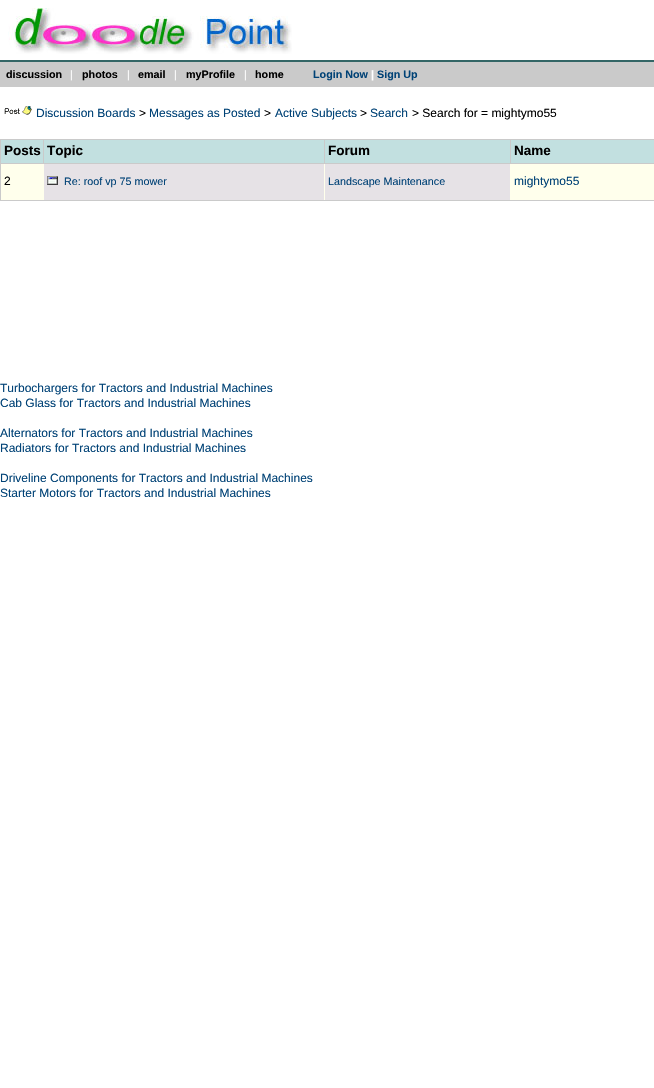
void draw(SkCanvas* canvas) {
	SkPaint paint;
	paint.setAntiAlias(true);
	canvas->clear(0xffffffff);
	canvas->drawImageRect(SkImages::DeferredFromEncodedData(SkData::MakeFromFileName("img1.png")), SkRect::MakeXYWH(8, 8, 284, 46), SkSamplingOptions());
	paint.setColor(0xff336666);
	canvas->drawRect(SkRect::MakeXYWH(0, 60, 654, 2), paint);
	paint.setColor(0xffcacaca);
	canvas->drawRect(SkRect::MakeXYWH(0, 62, 654, 25), paint);
	SkFont f1(fontMgr->matchFamilyStyle("Liberation Sans", SkFontStyle::Bold()), 10.75);
	f1.setSubpixel(true);
	paint.setColor(0xff000000);
	canvas->drawString("discussion", 6, 78, f1, paint);
	SkFont f2(fontMgr->matchFamilyStyle("Liberation Sans", SkFontStyle::Normal()), 10.75);
	f2.setSubpixel(true);
	paint.setColor(0xffffffff);
	canvas->drawString("|", 70, 78, f2, paint);
	paint.setColor(0xff000000);
	canvas->drawString("photos", 82, 78, f1, paint);
	paint.setColor(0xffffffff);
	canvas->drawString("|", 127, 78, f2, paint);
	paint.setColor(0xff000000);
	canvas->drawString("email", 138, 78, f1, paint);
	paint.setColor(0xffffffff);
	canvas->drawString("|", 174, 78, f2, paint);
	paint.setColor(0xff000000);
	canvas->drawString("myProfile", 186, 78, f1, paint);
	paint.setColor(0xffffffff);
	canvas->drawString("|", 244, 78, f2, paint);
	paint.setColor(0xff000000);
	canvas->drawString("home", 255, 78, f1, paint);
	paint.setColor(0xff004276);
	canvas->drawString("Login Now", 313, 78, f1, paint);
	paint.setColor(0xffffffff);
	canvas->drawString("|", 371, 78, f1, paint);
	paint.setColor(0xff004276);
	canvas->drawString("Sign Up", 377, 78, f1, paint);
	canvas->drawImageRect(SkImages::DeferredFromEncodedData(SkData::MakeFromFileName("img2.png")), SkRect::MakeXYWH(4, 106, 28, 9), SkSamplingOptions());
	SkFont f3(fontMgr->matchFamilyStyle("Liberation Sans", SkFontStyle::Normal()), 12);
	f3.setSubpixel(true);
	canvas->drawString("Discussion Boards", 36, 117, f3, paint);
	paint.setColor(0xff000000);
	canvas->drawString(">", 139, 117, f3, paint);
	paint.setColor(0xff004276);
	canvas->drawString("Messages as Posted", 149, 117, f3, paint);
	paint.setColor(0xff000000);
	canvas->drawString(">", 264, 117, f3, paint);
	paint.setColor(0xff004276);
	canvas->drawString("Active Subjects", 275, 117, f3, paint);
	paint.setColor(0xff000000);
	canvas->drawString(">", 360, 117, f3, paint);
	paint.setColor(0xff004276);
	canvas->drawString("Search", 370, 117, f3, paint);
	paint.setColor(0xff000000);
	canvas->drawString("> Search for = mightymo55", 412, 117, f3, paint);
	paint.setColor(0xffcacaca);
	canvas->drawRect(SkRect::MakeXYWH(0, 139, 654, 62), paint);
	paint.setColor(0xffc2e0e0);
	canvas->drawRect(SkRect::MakeXYWH(1, 140, 42, 23), paint);
	SkFont f4(fontMgr->matchFamilyStyle("Liberation Sans", SkFontStyle::Bold()), 13.5);
	f4.setSubpixel(true);
	paint.setColor(0xff000000);
	canvas->drawString("Posts", 4, 155, f4, paint);
	paint.setColor(0xffc2e0e0);
	canvas->drawRect(SkRect::MakeXYWH(44, 140, 280, 23), paint);
	paint.setColor(0xff000000);
	canvas->drawString("Topic", 47, 155, f4, paint);
	paint.setColor(0xffc2e0e0);
	canvas->drawRect(SkRect::MakeXYWH(325, 140, 185, 23), paint);
	paint.setColor(0xff000000);
	canvas->drawString("Forum", 328, 155, f4, paint);
	paint.setColor(0xffc2e0e0);
	canvas->drawRect(SkRect::MakeXYWH(511, 140, 143, 23), paint);
	paint.setColor(0xff000000);
	canvas->drawString("Name", 514, 155, f4, paint);
	paint.setColor(0xffffffec);
	canvas->drawRect(SkRect::MakeXYWH(1, 164, 653, 36), paint);
	paint.setColor(0xff000000);
	canvas->drawString("2", 4, 185, f3, paint);
	paint.setColor(0xffe6e2e6);
	canvas->drawRect(SkRect::MakeXYWH(44, 164, 280, 36), paint);
	canvas->drawImageRect(SkImages::DeferredFromEncodedData(SkData::MakeFromFileName("img3.png")), SkRect::MakeXYWH(47, 176, 11, 9), SkSamplingOptions());
	paint.setColor(0xff004276);
	canvas->drawString("Re: roof vp 75 mower", 64, 185, f2, paint);
	paint.setColor(0xffe6e2e6);
	canvas->drawRect(SkRect::MakeXYWH(325, 164, 185, 36), paint);
	paint.setColor(0xff004276);
	canvas->drawString("Landscape Maintenance", 328, 185, f2, paint);
	canvas->drawString("mightymo55", 514, 185, f3, paint);
	canvas->drawString("Turbochargers for Tractors and Industrial Machines", 0, 392, f3, paint);
	canvas->drawString("Cab Glass for Tractors and Industrial Machines", 0, 407, f3, paint);
	canvas->drawString("Alternators for Tractors and Industrial Machines", 0, 437, f3, paint);
	canvas->drawString("Radiators for Tractors and Industrial Machines", 0, 452, f3, paint);
	canvas->drawString("Driveline Components for Tractors and Industrial Machines", 0, 482, f3, paint);
	canvas->drawString("Starter Motors for Tractors and Industrial Machines", 0, 497, f3, paint);
}
